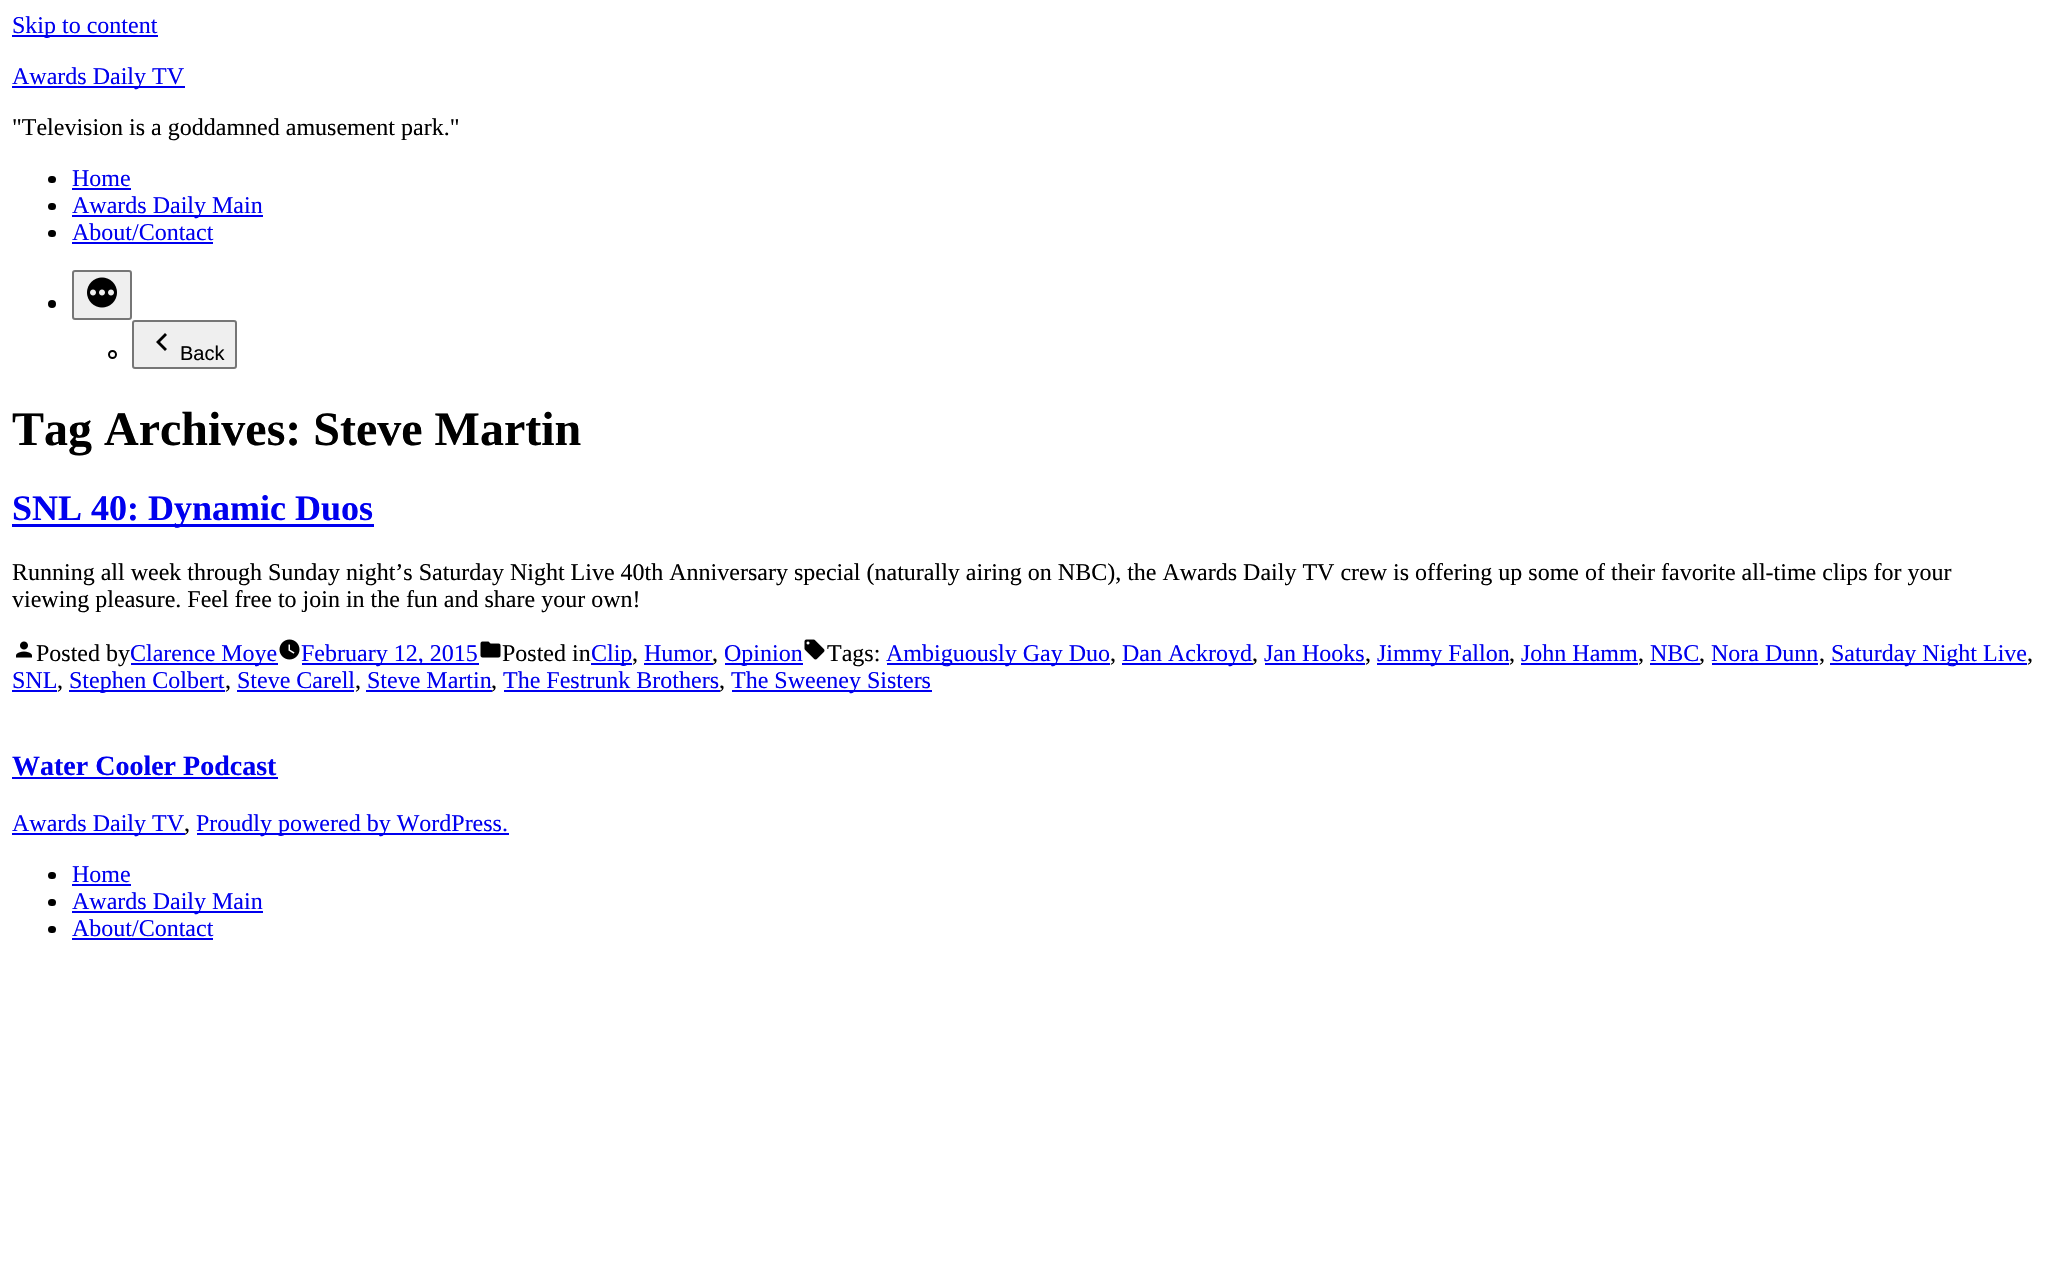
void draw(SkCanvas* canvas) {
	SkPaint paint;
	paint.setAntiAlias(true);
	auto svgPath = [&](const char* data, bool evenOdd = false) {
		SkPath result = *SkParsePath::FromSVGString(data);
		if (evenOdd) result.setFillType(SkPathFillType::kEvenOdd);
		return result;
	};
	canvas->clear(0xffffffff);
	paint.setColor(0xff0000ee);
	canvas->drawRect(SkRect::MakeXYWH(12, 35, 146, 2), paint);
	SkFont f1(fontMgr->matchFamilyStyle("Liberation Serif", SkFontStyle::Normal()), 24);
	f1.setSubpixel(true);
	canvas->drawString("Skip to content", 12, 33, f1, paint);
	canvas->drawRect(SkRect::MakeXYWH(12, 86, 173, 2), paint);
	canvas->drawString("Awards Daily TV", 12, 84, f1, paint);
	paint.setColor(0xff000000);
	canvas->drawString("\"Television is a goddamned amusement park.\"", 12, 135, f1, paint);
	canvas->drawRoundRect(SkRect::MakeXYWH(48, 176, 8, 7), 3.5, 3.5, paint);
	paint.setColor(0xff0000ee);
	canvas->drawString("Home", 72, 186, f1, paint);
	canvas->drawRect(SkRect::MakeXYWH(72, 188, 59, 2), paint);
	paint.setColor(0xff000000);
	canvas->drawRoundRect(SkRect::MakeXYWH(48, 203, 8, 7), 3.5, 3.5, paint);
	paint.setColor(0xff0000ee);
	canvas->drawRect(SkRect::MakeXYWH(72, 215, 191, 2), paint);
	canvas->drawString("Awards Daily Main", 72, 213, f1, paint);
	paint.setColor(0xff000000);
	canvas->drawRoundRect(SkRect::MakeXYWH(48, 230, 8, 7), 3.5, 3.5, paint);
	paint.setColor(0xff0000ee);
	canvas->drawString("About/Contact", 72, 240, f1, paint);
	canvas->drawRect(SkRect::MakeXYWH(72, 242, 141, 2), paint);
	paint.setColor(0xff000000);
	canvas->drawCircle(52, 304, 4, paint);
	paint.setColor(0xffefefef);
	canvas->drawRoundRect(SkRect::MakeXYWH(73, 271, 58, 48), 2, 2, paint);
	paint.setStroke(true);
	paint.setStrokeWidth(2);
	paint.setColor(0xff767676);
	canvas->drawRoundRect(SkRect::MakeXYWH(73, 271, 58, 48), 2, 2, paint);
	canvas->drawImageRect(SkImages::DeferredFromEncodedData(SkData::MakeFromFileName("img1.png")), SkRect::MakeXYWH(87, 277, 30, 31), SkSamplingOptions());
	paint.setColor(0xff000000);
	canvas->drawCircle(112.5, 354.5, 3.5, paint);
	paint.setStroke(false);
	paint.setColor(0xffefefef);
	canvas->drawRoundRect(SkRect::MakeXYWH(133, 321, 103, 47), 2, 2, paint);
	paint.setStroke(true);
	paint.setColor(0xff767676);
	canvas->drawRoundRect(SkRect::MakeXYWH(133, 321, 103, 47), 2, 2, paint);
	paint.setStroke(false);
	paint.setColor(0xff000000);
	canvas->drawPath(svgPath("M167 335L165 333L156 342L165 351L167 349L160 342Z"), paint);
	SkFont f2(fontMgr->matchFamilyStyle("Liberation Sans", SkFontStyle::Normal()), 20);
	f2.setSubpixel(true);
	canvas->drawString("Back", 180, 360, f2, paint);
	SkFont f3(fontMgr->matchFamilyStyle("Liberation Serif", SkFontStyle::Bold()), 48);
	f3.setSubpixel(true);
	canvas->drawString("Tag Archives: Steve Martin", 12, 445, f3, paint);
	paint.setColor(0xff0000ee);
	canvas->drawRect(SkRect::MakeXYWH(12, 524, 362, 3), paint);
	SkFont f4(fontMgr->matchFamilyStyle("Liberation Serif", SkFontStyle::Bold()), 36);
	f4.setSubpixel(true);
	canvas->drawString("SNL 40: Dynamic Duos", 12, 520, f4, paint);
	paint.setColor(0xff000000);
	canvas->drawString("Running all week through Sunday night’s Saturday Night Live 40th Anniversary special (naturally airing on NBC), the Awards Daily TV crew is offering up some of their favorite all-time clips for your", 12, 580, f1, paint);
	canvas->drawString("viewing pleasure. Feel free to join in the fun and share your own!", 12, 607, f1, paint);
	canvas->drawImageRect(SkImages::DeferredFromEncodedData(SkData::MakeFromFileName("img2.png")), SkRect::MakeXYWH(16, 641, 16, 17), SkSamplingOptions());
	canvas->drawString("Posted by", 36, 661, f1, paint);
	paint.setColor(0xff0000ee);
	canvas->drawRect(SkRect::MakeXYWH(131, 663, 147, 2), paint);
	canvas->drawString("Clarence Moye", 130, 661, f1, paint);
	canvas->drawImageRect(SkImages::DeferredFromEncodedData(SkData::MakeFromFileName("img3.png")), SkRect::MakeXYWH(279, 639, 21, 21), SkSamplingOptions());
	canvas->drawRect(SkRect::MakeXYWH(302, 663, 177, 2), paint);
	canvas->drawString("February 12, 2015", 301, 661, f1, paint);
	canvas->drawImageRect(SkImages::DeferredFromEncodedData(SkData::MakeFromFileName("img4.png")), SkRect::MakeXYWH(480, 641, 21, 17), SkSamplingOptions());
	paint.setColor(0xff000000);
	canvas->drawString("Posted in", 502, 661, f1, paint);
	paint.setColor(0xff0000ee);
	canvas->drawRect(SkRect::MakeXYWH(591, 663, 41, 2), paint);
	canvas->drawString("Clip", 591, 661, f1, paint);
	paint.setColor(0xff000000);
	canvas->drawString(",", 632, 661, f1, paint);
	paint.setColor(0xff0000ee);
	canvas->drawString("Humor", 644, 661, f1, paint);
	canvas->drawRect(SkRect::MakeXYWH(644, 663, 69, 2), paint);
	paint.setColor(0xff000000);
	canvas->drawString(",", 712, 661, f1, paint);
	paint.setColor(0xff0000ee);
	canvas->drawRect(SkRect::MakeXYWH(725, 663, 78, 2), paint);
	canvas->drawString("Opinion", 724, 661, f1, paint);
	canvas->drawImageRect(SkImages::DeferredFromEncodedData(SkData::MakeFromFileName("img5.png")), SkRect::MakeXYWH(804, 639, 21, 21), SkSamplingOptions());
	paint.setColor(0xff000000);
	canvas->drawString("Tags:", 827, 661, f1, paint);
	paint.setColor(0xff0000ee);
	canvas->drawRect(SkRect::MakeXYWH(887, 663, 223, 2), paint);
	canvas->drawString("Ambiguously Gay Duo", 886, 661, f1, paint);
	paint.setColor(0xff000000);
	canvas->drawString(",", 1110, 661, f1, paint);
	paint.setColor(0xff0000ee);
	canvas->drawRect(SkRect::MakeXYWH(1122, 663, 131, 2), paint);
	canvas->drawString("Dan Ackroyd", 1122, 661, f1, paint);
	paint.setColor(0xff000000);
	canvas->drawString(",", 1252, 661, f1, paint);
	paint.setColor(0xff0000ee);
	canvas->drawString("Jan Hooks", 1264, 661, f1, paint);
	paint.setColor(0xff000000);
	canvas->drawString(",", 1365, 661, f1, paint);
	paint.setColor(0xff0000ee);
	canvas->drawRect(SkRect::MakeXYWH(1265, 663, 100, 2), paint);
	canvas->drawRect(SkRect::MakeXYWH(1377, 663, 132, 2), paint);
	canvas->drawString("Jimmy Fallon", 1377, 661, f1, paint);
	paint.setColor(0xff000000);
	canvas->drawString(",", 1509, 661, f1, paint);
	paint.setColor(0xff0000ee);
	canvas->drawString("John Hamm", 1521, 661, f1, paint);
	paint.setColor(0xff000000);
	canvas->drawString(",", 1638, 661, f1, paint);
	paint.setColor(0xff0000ee);
	canvas->drawRect(SkRect::MakeXYWH(1521, 663, 117, 2), paint);
	canvas->drawString("NBC", 1650, 661, f1, paint);
	paint.setColor(0xff000000);
	canvas->drawString(",", 1699, 661, f1, paint);
	paint.setColor(0xff0000ee);
	canvas->drawRect(SkRect::MakeXYWH(1650, 663, 50, 2), paint);
	canvas->drawString("Nora Dunn", 1711, 661, f1, paint);
	paint.setColor(0xff000000);
	canvas->drawString(",", 1819, 661, f1, paint);
	paint.setColor(0xff0000ee);
	canvas->drawRect(SkRect::MakeXYWH(1712, 663, 106, 2), paint);
	canvas->drawRect(SkRect::MakeXYWH(1830, 663, 197, 2), paint);
	canvas->drawString("Saturday Night Live", 1831, 661, f1, paint);
	paint.setColor(0xff000000);
	canvas->drawString(",", 2027, 661, f1, paint);
	paint.setColor(0xff0000ee);
	canvas->drawString("SNL", 12, 688, f1, paint);
	paint.setColor(0xff000000);
	canvas->drawString(",", 57, 688, f1, paint);
	paint.setColor(0xff0000ee);
	canvas->drawRect(SkRect::MakeXYWH(12, 690, 45, 2), paint);
	canvas->drawRect(SkRect::MakeXYWH(69, 690, 156, 2), paint);
	canvas->drawString("Stephen Colbert", 69, 688, f1, paint);
	paint.setColor(0xff000000);
	canvas->drawString(",", 225, 688, f1, paint);
	paint.setColor(0xff0000ee);
	canvas->drawString("Steve Carell", 237, 688, f1, paint);
	paint.setColor(0xff000000);
	canvas->drawString(",", 355, 688, f1, paint);
	paint.setColor(0xff0000ee);
	canvas->drawRect(SkRect::MakeXYWH(237, 690, 117, 2), paint);
	canvas->drawString("Steve Martin", 367, 688, f1, paint);
	paint.setColor(0xff000000);
	canvas->drawString(",", 491, 688, f1, paint);
	paint.setColor(0xff0000ee);
	canvas->drawRect(SkRect::MakeXYWH(366, 690, 126, 2), paint);
	canvas->drawString("The Festrunk Brothers", 503, 688, f1, paint);
	paint.setColor(0xff000000);
	canvas->drawString(",", 719, 688, f1, paint);
	paint.setColor(0xff0000ee);
	canvas->drawRect(SkRect::MakeXYWH(504, 690, 216, 2), paint);
	canvas->drawRect(SkRect::MakeXYWH(732, 690, 200, 2), paint);
	canvas->drawString("The Sweeney Sisters", 731, 688, f1, paint);
	SkFont f5(fontMgr->matchFamilyStyle("Liberation Serif", SkFontStyle::Bold()), 28);
	f5.setSubpixel(true);
	canvas->drawString("Water Cooler Podcast", 12, 775, f5, paint);
	canvas->drawRect(SkRect::MakeXYWH(12, 777, 266, 2), paint);
	canvas->drawRect(SkRect::MakeXYWH(12, 833, 173, 2), paint);
	canvas->drawString("Awards Daily TV", 12, 831, f1, paint);
	paint.setColor(0xff000000);
	canvas->drawString(",", 184, 831, f1, paint);
	paint.setColor(0xff0000ee);
	canvas->drawRect(SkRect::MakeXYWH(197, 833, 312, 2), paint);
	canvas->drawString("Proudly powered by WordPress.", 196, 831, f1, paint);
	paint.setColor(0xff000000);
	canvas->drawRoundRect(SkRect::MakeXYWH(48, 872, 8, 7), 3.5, 3.5, paint);
	paint.setColor(0xff0000ee);
	canvas->drawString("Home", 72, 882, f1, paint);
	canvas->drawRect(SkRect::MakeXYWH(72, 884, 59, 2), paint);
	paint.setColor(0xff000000);
	canvas->drawRoundRect(SkRect::MakeXYWH(48, 899, 8, 7), 3.5, 3.5, paint);
	paint.setColor(0xff0000ee);
	canvas->drawRect(SkRect::MakeXYWH(72, 911, 191, 2), paint);
	canvas->drawString("Awards Daily Main", 72, 909, f1, paint);
	paint.setColor(0xff000000);
	canvas->drawRoundRect(SkRect::MakeXYWH(48, 926, 8, 7), 3.5, 3.5, paint);
	paint.setColor(0xff0000ee);
	canvas->drawString("About/Contact", 72, 936, f1, paint);
	canvas->drawRect(SkRect::MakeXYWH(72, 938, 141, 2), paint);
}
